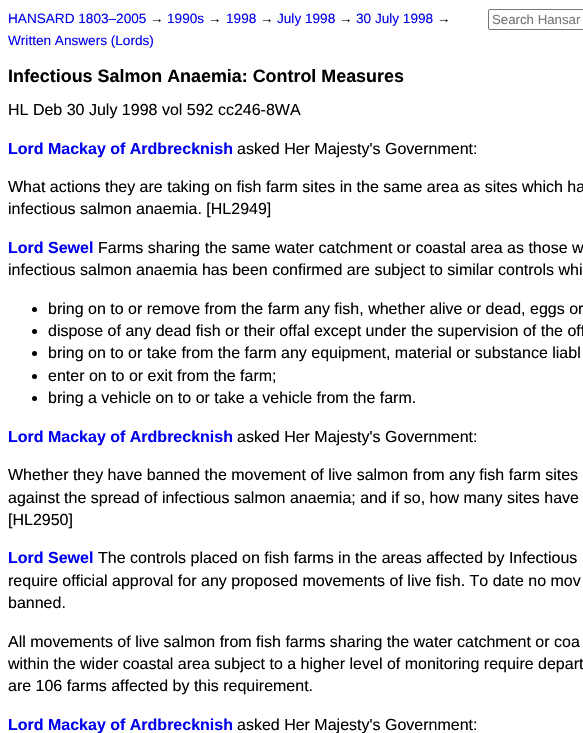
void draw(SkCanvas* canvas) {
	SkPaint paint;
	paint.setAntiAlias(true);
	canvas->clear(0xffffffff);
	SkFont f1(fontMgr->matchFamilyStyle("Liberation Sans", SkFontStyle::Normal()), 13.6);
	f1.setSubpixel(true);
	paint.setColor(0xff0000ee);
	canvas->drawString("HANSARD 1803–2005", 8, 23, f1, paint);
	paint.setColor(0xff000000);
	canvas->drawString("→", 150, 23, f1, paint);
	paint.setColor(0xff0000ee);
	canvas->drawString("1990s", 167, 23, f1, paint);
	paint.setColor(0xff000000);
	canvas->drawString("→", 208, 23, f1, paint);
	paint.setColor(0xff0000ee);
	canvas->drawString("1998", 226, 23, f1, paint);
	paint.setColor(0xff000000);
	canvas->drawString("→", 260, 23, f1, paint);
	paint.setColor(0xff0000ee);
	canvas->drawString("July 1998", 277, 23, f1, paint);
	paint.setColor(0xff000000);
	canvas->drawString("→", 339, 23, f1, paint);
	paint.setColor(0xff0000ee);
	canvas->drawString("30 July 1998", 356, 23, f1, paint);
	paint.setColor(0xff000000);
	canvas->drawString("→", 437, 23, f1, paint);
	paint.setColor(0xff0000ee);
	canvas->drawString("Written Answers (Lords)", 8, 45, f1, paint);
	paint.setStroke(true);
	paint.setStrokeWidth(1);
	paint.setColor(0xff767676);
	canvas->drawRoundRect(SkRect::MakeXYWH(488.5, 9.5, 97, 20), 1.5, 1.5, paint);
	SkFont f2(fontMgr->matchFamilyStyle("Liberation Sans", SkFontStyle::Normal()), 13.25);
	f2.setSubpixel(true);
	paint.setStroke(false);
	paint.setColor(0xff757575);
	canvas->drawString("Search Hansar", 492, 24, f2, paint);
	SkFont f3(fontMgr->matchFamilyStyle("Liberation Sans", SkFontStyle::Bold()), 17.9);
	f3.setSubpixel(true);
	paint.setColor(0xff000000);
	canvas->drawString("Infectious Salmon Anaemia: Control Measures", 8, 82, f3, paint);
	SkFont f4(fontMgr->matchFamilyStyle("Liberation Sans", SkFontStyle::Normal()), 16);
	f4.setSubpixel(true);
	canvas->drawString("HL Deb 30 July 1998 vol 592 cc246-8WA", 8, 115, f4, paint);
	SkFont f5(fontMgr->matchFamilyStyle("Liberation Sans", SkFontStyle::Bold()), 16);
	f5.setSubpixel(true);
	paint.setColor(0xff0000ee);
	canvas->drawString("Lord Mackay of Ardbrecknish", 8, 154, f5, paint);
	paint.setColor(0xff000000);
	canvas->drawString("asked Her Majesty's Government:", 237, 154, f4, paint);
	canvas->drawString("What actions they are taking on fish farm sites in the same area as sites which ha", 8, 192, f4, paint);
	canvas->drawString("infectious salmon anaemia. [HL2949]", 8, 214, f4, paint);
	paint.setColor(0xff0000ee);
	canvas->drawString("Lord Sewel", 8, 253, f5, paint);
	paint.setColor(0xff000000);
	canvas->drawString("Farms sharing the same water catchment or coastal area as those w", 98, 253, f4, paint);
	canvas->drawString("infectious salmon anaemia has been confirmed are subject to similar controls whi", 8, 275, f4, paint);
	canvas->drawCircle(34.5, 309.5, 2.5, paint);
	canvas->drawString("bring on to or remove from the farm any fish, whether alive or dead, eggs or", 48, 314, f4, paint);
	canvas->drawCircle(34.5, 331.5, 2.5, paint);
	canvas->drawString("dispose of any dead fish or their offal except under the supervision of the off", 48, 336, f4, paint);
	canvas->drawCircle(34.5, 353.5, 2.5, paint);
	canvas->drawString("bring on to or take from the farm any equipment, material or substance liabl", 48, 358, f4, paint);
	canvas->drawCircle(34.5, 376.5, 2.5, paint);
	canvas->drawString("enter on to or exit from the farm;", 48, 381, f4, paint);
	canvas->drawCircle(34.5, 398.5, 2.5, paint);
	canvas->drawString("bring a vehicle on to or take a vehicle from the farm.", 48, 403, f4, paint);
	paint.setColor(0xff0000ee);
	canvas->drawString("Lord Mackay of Ardbrecknish", 8, 442, f5, paint);
	paint.setColor(0xff000000);
	canvas->drawString("asked Her Majesty's Government:", 237, 442, f4, paint);
	canvas->drawString("Whether they have banned the movement of live salmon from any fish farm sites", 8, 480, f4, paint);
	canvas->drawString("against the spread of infectious salmon anaemia; and if so, how many sites have", 8, 503, f4, paint);
	canvas->drawString("[HL2950]", 8, 525, f4, paint);
	paint.setColor(0xff0000ee);
	canvas->drawString("Lord Sewel", 8, 563, f5, paint);
	paint.setColor(0xff000000);
	canvas->drawString("The controls placed on fish farms in the areas affected by Infectious", 98, 563, f4, paint);
	canvas->drawString("require official approval for any proposed movements of live fish. To date no mov", 8, 586, f4, paint);
	canvas->drawString("banned.", 8, 608, f4, paint);
	canvas->drawString("All movements of live salmon from fish farms sharing the water catchment or coa", 8, 647, f4, paint);
	canvas->drawString("within the wider coastal area subject to a higher level of monitoring require depart", 8, 669, f4, paint);
	canvas->drawString("are 106 farms affected by this requirement.", 8, 691, f4, paint);
	paint.setColor(0xff0000ee);
	canvas->drawString("Lord Mackay of Ardbrecknish", 8, 730, f5, paint);
	paint.setColor(0xff000000);
	canvas->drawString("asked Her Majesty's Government:", 237, 730, f4, paint);
}
